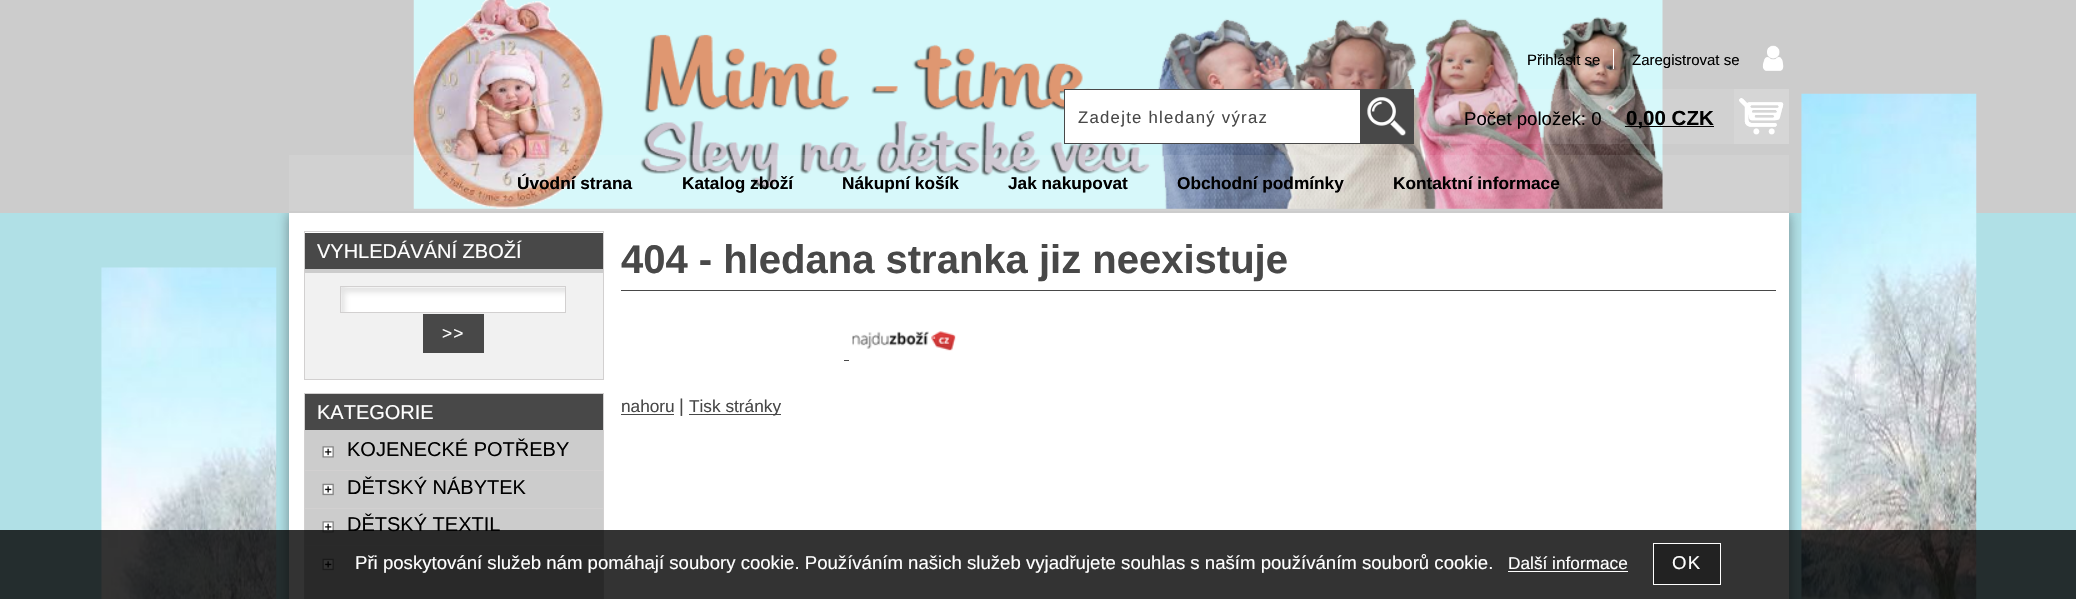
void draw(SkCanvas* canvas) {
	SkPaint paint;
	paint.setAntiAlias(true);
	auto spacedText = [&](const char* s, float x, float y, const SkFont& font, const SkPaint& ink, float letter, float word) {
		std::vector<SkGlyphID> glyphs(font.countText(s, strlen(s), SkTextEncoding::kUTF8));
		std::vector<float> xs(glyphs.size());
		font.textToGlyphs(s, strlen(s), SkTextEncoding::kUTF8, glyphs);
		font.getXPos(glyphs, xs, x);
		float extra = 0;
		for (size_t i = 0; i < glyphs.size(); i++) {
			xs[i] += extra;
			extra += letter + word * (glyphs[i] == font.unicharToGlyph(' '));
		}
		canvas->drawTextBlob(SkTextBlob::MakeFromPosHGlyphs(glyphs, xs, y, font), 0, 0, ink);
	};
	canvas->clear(0xffb0e0e6);
	paint.setColor(0x80323232);
	paint.setMaskFilter(SkMaskFilter::MakeBlur(kNormal_SkBlurStyle, 6));
	canvas->drawRect(SkRect::MakeXYWH(289, 213, 1500, 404), paint);
	paint.setMaskFilter(nullptr);
	paint.setColor(0xffcccccc);
	canvas->drawRect(SkRect::MakeXYWH(0, 0, 2076, 213), paint);
	canvas->drawImageRect(SkImages::DeferredFromEncodedData(SkData::MakeFromFileName("img1.png")), SkRect::MakeXYWH(413, 0, 1250, 209), SkSamplingOptions());
	paint.setColor(0xffffffff);
	canvas->drawRect(SkRect::MakeXYWH(1613, 49, 1, 20), paint);
	SkFont f1(fontMgr->matchFamilyStyle("Liberation Sans", SkFontStyle::Normal()), 15);
	f1.setSubpixel(true);
	paint.setColor(0xff000000);
	canvas->drawString("Přihlásit se", 1527, 65, f1, paint);
	canvas->drawString("Zaregistrovat se", 1632, 65, f1, paint);
	canvas->drawImageRect(SkImages::DeferredFromEncodedData(SkData::MakeFromFileName("img2.png")), SkRect::MakeXYWH(1762, 45, 22, 26), SkSamplingOptions());
	paint.setColor(0xffffffff);
	canvas->drawRect(SkRect::MakeXYWH(1065, 90, 295, 53), paint);
	paint.setStroke(true);
	paint.setStrokeWidth(1);
	paint.setColor(0xff484848);
	canvas->drawRect(SkRect::MakeXYWH(1064.5, 89.5, 349, 54), paint);
	SkFont f2(fontMgr->matchFamilyStyle("Liberation Sans", SkFontStyle::Normal()), 16.75);
	f2.setSubpixel(true);
	paint.setStroke(false);
	spacedText("Zadejte hledaný výraz", 1078, 123, f2, paint, 1.25, 0);
	canvas->drawRect(SkRect::MakeXYWH(1360, 90, 53, 53), paint);
	canvas->drawImageRect(SkImages::DeferredFromEncodedData(SkData::MakeFromFileName("img3.png")), SkRect::MakeXYWH(1367, 97, 40, 39), SkSamplingOptions());
	paint.setColor(0x1affffff);
	canvas->drawRect(SkRect::MakeXYWH(1439, 89, 295, 55), paint);
	SkFont f3(fontMgr->matchFamilyStyle("Liberation Sans", SkFontStyle::Normal()), 18.6);
	f3.setSubpixel(true);
	paint.setColor(0xff000000);
	canvas->drawString("Počet položek: 0", 1464, 125, f3, paint);
	canvas->drawRect(SkRect::MakeXYWH(1625, 126, 89, 1), paint);
	SkFont f4(fontMgr->matchFamilyStyle("Liberation Sans", SkFontStyle::Bold()), 20.5);
	f4.setSubpixel(true);
	canvas->drawString("0,00 CZK", 1626, 125, f4, paint);
	paint.setColor(0xffd6d6d6);
	canvas->drawRect(SkRect::MakeXYWH(1734, 89, 55, 55), paint);
	canvas->drawImageRect(SkImages::DeferredFromEncodedData(SkData::MakeFromFileName("img4.png")), SkRect::MakeXYWH(1739, 98, 45, 37), SkSamplingOptions());
	canvas->drawImageRect(SkImages::DeferredFromEncodedData(SkData::MakeFromFileName("img5.png")), SkRect::MakeXYWH(1801, 93, 176, 506), SkSamplingOptions());
	paint.setColor(0x1affffff);
	canvas->drawRect(SkRect::MakeXYWH(289, 155, 1500, 56), paint);
	SkFont f5(fontMgr->matchFamilyStyle("Liberation Sans", SkFontStyle::Bold()), 17.25);
	f5.setSubpixel(true);
	paint.setColor(0xff000000);
	canvas->drawString("Úvodní strana", 517, 189, f5, paint);
	canvas->drawString("Katalog zboží", 682, 189, f5, paint);
	canvas->drawString("Nákupní košík", 842, 189, f5, paint);
	canvas->drawString("Jak nakupovat", 1008, 189, f5, paint);
	canvas->drawString("Obchodní podmínky", 1177, 189, f5, paint);
	canvas->drawString("Kontaktní informace", 1393, 189, f5, paint);
	canvas->drawImageRect(SkImages::DeferredFromEncodedData(SkData::MakeFromFileName("img6.png")), SkRect::MakeXYWH(101, 267, 176, 332), SkSamplingOptions());
	paint.setColor(0xffffffff);
	canvas->drawRect(SkRect::MakeXYWH(289, 213, 1500, 386), paint);
	paint.setStroke(true);
	paint.setColor(0xffd2d0d0);
	canvas->drawRect(SkRect::MakeXYWH(304.5, 231.5, 299, 148), paint);
	paint.setStroke(false);
	paint.setColor(0xff484848);
	canvas->drawRect(SkRect::MakeXYWH(305, 233, 298, 36), paint);
	paint.setColor(0xffcccccc);
	canvas->drawRect(SkRect::MakeXYWH(305, 269, 298, 4), paint);
	SkFont f6(fontMgr->matchFamilyStyle("Liberation Sans", SkFontStyle::Normal()), 20);
	f6.setSubpixel(true);
	paint.setColor(0xffffffff);
	canvas->drawString("VYHLEDÁVÁNÍ ZBOŽÍ", 317, 258, f6, paint);
	paint.setColor(0xfff1f1f1);
	canvas->drawRect(SkRect::MakeXYWH(305, 273, 298, 106), paint);
	canvas->drawImageRect(SkImages::DeferredFromEncodedData(SkData::MakeFromFileName("img7.png")), SkRect::MakeXYWH(341, 287, 224, 25), SkSamplingOptions());
	paint.setStroke(true);
	paint.setColor(0xffd2d0d0);
	canvas->drawRect(SkRect::MakeXYWH(340.5, 286.5, 225, 26), paint);
	paint.setStroke(false);
	paint.setColor(0xff484848);
	canvas->drawRect(SkRect::MakeXYWH(423, 314, 61, 39), paint);
	SkFont f7(fontMgr->matchFamilyStyle("Liberation Sans", SkFontStyle::Normal()), 17.25);
	f7.setSubpixel(true);
	paint.setColor(0xffffffff);
	spacedText(">>", 442, 339, f7, paint, 1.25, 0);
	paint.setStroke(true);
	paint.setColor(0xffd2d0d0);
	canvas->drawRect(SkRect::MakeXYWH(304.5, 393.5, 299, 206), paint);
	paint.setStroke(false);
	paint.setColor(0xff484848);
	canvas->drawRect(SkRect::MakeXYWH(305, 394, 298, 36), paint);
	paint.setColor(0xffcccccc);
	canvas->drawRect(SkRect::MakeXYWH(305, 430, 298, 40), paint);
	paint.setColor(0xffffffff);
	canvas->drawString("KATEGORIE", 317, 419, f6, paint);
	paint.setColor(0xffd2d0d0);
	canvas->drawRect(SkRect::MakeXYWH(305, 470, 298, 1), paint);
	canvas->drawImageRect(SkImages::DeferredFromEncodedData(SkData::MakeFromFileName("img8.png")), SkRect::MakeXYWH(322, 446, 12, 12), SkSamplingOptions());
	paint.setColor(0xff000000);
	canvas->drawString("KOJENECKÉ POTŘEBY", 347, 456, f6, paint);
	paint.setColor(0xffcccccc);
	canvas->drawRect(SkRect::MakeXYWH(305, 471, 298, 37), paint);
	paint.setColor(0xffd2d0d0);
	canvas->drawRect(SkRect::MakeXYWH(305, 508, 298, 1), paint);
	canvas->drawImageRect(SkImages::DeferredFromEncodedData(SkData::MakeFromFileName("img9.png")), SkRect::MakeXYWH(322, 483, 12, 13), SkSamplingOptions());
	paint.setColor(0xff000000);
	canvas->drawString("DĚTSKÝ NÁBYTEK", 347, 494, f6, paint);
	paint.setColor(0xffcccccc);
	canvas->drawRect(SkRect::MakeXYWH(305, 509, 298, 36), paint);
	paint.setColor(0xffd2d0d0);
	canvas->drawRect(SkRect::MakeXYWH(305, 545, 298, 1), paint);
	canvas->drawImageRect(SkImages::DeferredFromEncodedData(SkData::MakeFromFileName("img8.png")), SkRect::MakeXYWH(322, 521, 12, 12), SkSamplingOptions());
	paint.setColor(0xff000000);
	canvas->drawString("DĚTSKÝ TEXTIL", 347, 531, f6, paint);
	paint.setColor(0xffcccccc);
	canvas->drawRect(SkRect::MakeXYWH(305, 546, 298, 53), paint);
	canvas->drawImageRect(SkImages::DeferredFromEncodedData(SkData::MakeFromFileName("img9.png")), SkRect::MakeXYWH(322, 558, 12, 13), SkSamplingOptions());
	paint.setColor(0xff484848);
	canvas->drawRect(SkRect::MakeXYWH(621, 290, 1155, 1), paint);
	SkFont f8(fontMgr->matchFamilyStyle("Liberation Sans", SkFontStyle::Bold()), 40);
	f8.setSubpixel(true);
	canvas->drawString("404 - hledana stranka jiz neexistuje", 621, 273, f8, paint);
	canvas->drawImageRect(SkImages::DeferredFromEncodedData(SkData::MakeFromFileName("img10.png")), SkRect::MakeXYWH(852, 331, 104, 20), SkSamplingOptions());
	canvas->drawRect(SkRect::MakeXYWH(844, 360, 5, 1), paint);
	canvas->drawString("nahoru", 621, 412, f7, paint);
	canvas->drawRect(SkRect::MakeXYWH(621, 414, 53, 1), paint);
	canvas->drawString("|", 679, 412, f3, paint);
	canvas->drawRect(SkRect::MakeXYWH(689, 414, 92, 1), paint);
	canvas->drawString("Tisk stránky", 689, 412, f7, paint);
	paint.setColor(0xcc000000);
	canvas->drawRect(SkRect::MakeXYWH(0, 530, 2076, 69), paint);
	paint.setColor(0xffffffff);
	canvas->drawString("Při poskytování služeb nám pomáhají soubory cookie. Používáním našich služeb vyjadřujete souhlas s naším používáním souborů cookie.", 355, 569, f3, paint);
	canvas->drawString("Další informace", 1508, 569, f7, paint);
	canvas->drawRect(SkRect::MakeXYWH(1508, 571, 120, 1), paint);
	paint.setColor(0xff222222);
	canvas->drawRect(SkRect::MakeXYWH(1653.5, 543.5, 67, 41), paint);
	paint.setStroke(true);
	paint.setColor(0xffffffff);
	canvas->drawRect(SkRect::MakeXYWH(1653.5, 543.5, 67, 41), paint);
	paint.setStroke(false);
	spacedText("OK", 1672, 569, f3, paint, 1.25, 0);
}
